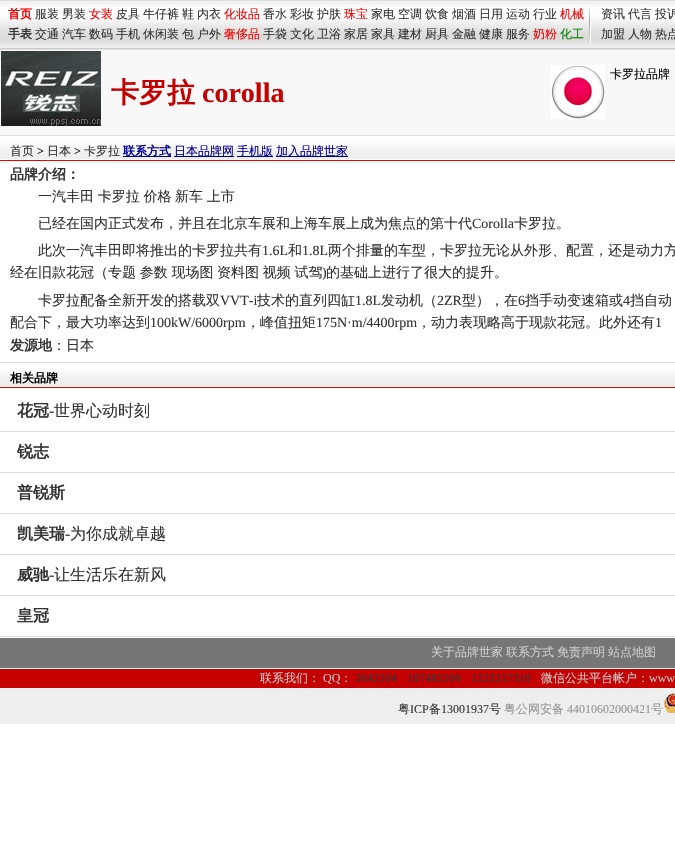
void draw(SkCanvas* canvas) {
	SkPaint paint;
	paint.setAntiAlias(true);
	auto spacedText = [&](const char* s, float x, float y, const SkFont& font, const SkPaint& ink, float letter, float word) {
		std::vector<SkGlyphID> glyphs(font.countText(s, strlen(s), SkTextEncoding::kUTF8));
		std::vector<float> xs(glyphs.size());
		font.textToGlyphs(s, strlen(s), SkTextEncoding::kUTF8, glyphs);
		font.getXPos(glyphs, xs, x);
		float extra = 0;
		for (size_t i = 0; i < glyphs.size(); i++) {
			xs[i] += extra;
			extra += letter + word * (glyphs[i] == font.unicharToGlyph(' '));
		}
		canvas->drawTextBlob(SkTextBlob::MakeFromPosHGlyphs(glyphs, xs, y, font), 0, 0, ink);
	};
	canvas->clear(0xffffffff);
	canvas->drawImageRect(SkImages::DeferredFromEncodedData(SkData::MakeFromFileName("img1.png")), SkRect::MakeXYWH(0, 0, 675, 48), SkSamplingOptions());
	paint.setColor(0xffcccccc);
	canvas->drawRect(SkRect::MakeXYWH(0, 48, 675, 1), paint);
	SkFont f1(fontMgr->matchFamilyStyle("WenQuanYi Zen Hei", SkFontStyle::Bold()), 12);
	f1.setSubpixel(true);
	paint.setColor(0xfff50000);
	canvas->drawString("首页", 8, 18, f1, paint);
	SkFont f2(fontMgr->matchFamilyStyle("WenQuanYi Zen Hei", SkFontStyle(500, SkFontStyle::kNormal_Width, SkFontStyle::kUpright_Slant)), 12);
	f2.setSubpixel(true);
	paint.setColor(0xff333333);
	canvas->drawString("服装", 35, 18, f2, paint);
	canvas->drawString("男装", 62, 18, f2, paint);
	paint.setColor(0xfff50000);
	canvas->drawString("女装", 89, 18, f2, paint);
	paint.setColor(0xff333333);
	canvas->drawString("皮具", 116, 18, f2, paint);
	canvas->drawString("牛仔裤", 143, 18, f2, paint);
	canvas->drawString("鞋", 182, 18, f2, paint);
	canvas->drawString("内衣", 197, 18, f2, paint);
	paint.setColor(0xfff50000);
	canvas->drawString("化妆品", 224, 18, f2, paint);
	paint.setColor(0xff333333);
	canvas->drawString("香水", 263, 18, f2, paint);
	canvas->drawString("彩妆", 290, 18, f2, paint);
	canvas->drawString("护肤", 317, 18, f2, paint);
	paint.setColor(0xfff50000);
	canvas->drawString("珠宝", 344, 18, f2, paint);
	paint.setColor(0xff333333);
	canvas->drawString("家电", 371, 18, f2, paint);
	canvas->drawString("空调", 398, 18, f2, paint);
	canvas->drawString("饮食", 425, 18, f2, paint);
	canvas->drawString("烟酒", 452, 18, f2, paint);
	canvas->drawString("日用", 479, 18, f2, paint);
	canvas->drawString("运动", 506, 18, f2, paint);
	canvas->drawString("行业", 533, 18, f2, paint);
	paint.setColor(0xfff50000);
	canvas->drawString("机械", 560, 18, f2, paint);
	paint.setColor(0xff333333);
	canvas->drawString("手表", 8, 38, f1, paint);
	canvas->drawString("交通", 35, 38, f2, paint);
	canvas->drawString("汽车", 62, 38, f2, paint);
	canvas->drawString("数码", 89, 38, f2, paint);
	canvas->drawString("手机", 116, 38, f2, paint);
	canvas->drawString("休闲装", 143, 38, f2, paint);
	canvas->drawString("包", 182, 38, f2, paint);
	canvas->drawString("户外", 197, 38, f2, paint);
	paint.setColor(0xfff50000);
	canvas->drawString("奢侈品", 224, 38, f2, paint);
	paint.setColor(0xff333333);
	canvas->drawString("手袋", 263, 38, f2, paint);
	canvas->drawString("文化", 290, 38, f2, paint);
	canvas->drawString("卫浴", 317, 38, f2, paint);
	canvas->drawString("家居", 344, 38, f2, paint);
	canvas->drawString("家具", 371, 38, f2, paint);
	canvas->drawString("建材", 398, 38, f2, paint);
	canvas->drawString("厨具", 425, 38, f2, paint);
	canvas->drawString("金融", 452, 38, f2, paint);
	canvas->drawString("健康", 479, 38, f2, paint);
	canvas->drawString("服务", 506, 38, f2, paint);
	paint.setColor(0xfff50000);
	canvas->drawString("奶粉", 533, 38, f2, paint);
	paint.setColor(0xff008000);
	canvas->drawString("化工", 560, 38, f2, paint);
	canvas->drawImageRect(SkImages::DeferredFromEncodedData(SkData::MakeFromFileName("img2.png")), SkRect::MakeXYWH(589, 4, 2, 40), SkSamplingOptions());
	paint.setColor(0xff333333);
	canvas->drawString("资讯", 601, 18, f2, paint);
	canvas->drawString("代言", 628, 18, f2, paint);
	canvas->drawString("投诉", 655, 18, f2, paint);
	canvas->drawString("加盟", 601, 38, f2, paint);
	canvas->drawString("人物", 628, 38, f2, paint);
	canvas->drawString("热点", 655, 38, f2, paint);
	paint.setColor(0xfff8f8f8);
	canvas->drawRect(SkRect::MakeXYWH(0, 50, 675, 85), paint);
	paint.setColor(0xffe0e0e0);
	canvas->drawRect(SkRect::MakeXYWH(0, 49, 675, 1), paint);
	canvas->drawImageRect(SkImages::DeferredFromEncodedData(SkData::MakeFromFileName("img3.png")), SkRect::MakeXYWH(1, 51, 100, 75), SkSamplingOptions());
	canvas->drawImageRect(SkImages::DeferredFromEncodedData(SkData::MakeFromFileName("img4.png")), SkRect::MakeXYWH(551, 65, 54, 54), SkSamplingOptions());
	paint.setColor(0xff000000);
	canvas->drawString("卡罗拉品牌", 610, 78, f2, paint);
	SkFont f3(fontMgr->matchFamilyStyle("WenQuanYi Zen Hei", SkFontStyle::Bold()), 28);
	f3.setSubpixel(true);
	paint.setColor(0xffc50000);
	canvas->drawString("卡罗拉", 111, 102, f3, paint);
	SkFont f4(fontMgr->matchFamilyStyle("Liberation Serif", SkFontStyle::Bold()), 28);
	f4.setSubpixel(true);
	canvas->drawString("corolla", 202, 102, f4, paint);
	canvas->drawImageRect(SkImages::DeferredFromEncodedData(SkData::MakeFromFileName("img5.png")), SkRect::MakeXYWH(0, 135, 675, 26), SkSamplingOptions());
	paint.setColor(0xff333333);
	canvas->drawString("首页", 10, 155, f2, paint);
	SkFont f5(fontMgr->matchFamilyStyle("Liberation Serif", SkFontStyle::Normal()), 12);
	f5.setSubpixel(true);
	paint.setColor(0xff000000);
	canvas->drawString(">", 37, 155, f5, paint);
	paint.setColor(0xff333333);
	canvas->drawString("日本", 47, 155, f2, paint);
	paint.setColor(0xff000000);
	canvas->drawString(">", 74, 155, f5, paint);
	paint.setColor(0xff333333);
	canvas->drawString("卡罗拉", 84, 155, f2, paint);
	paint.setColor(0xff000099);
	canvas->drawRect(SkRect::MakeXYWH(123, 156, 48, 1), paint);
	canvas->drawString("联系方式", 123, 155, f1, paint);
	canvas->drawRect(SkRect::MakeXYWH(174, 156, 60, 1), paint);
	canvas->drawString("日本品牌网", 174, 155, f2, paint);
	canvas->drawRect(SkRect::MakeXYWH(237, 156, 36, 1), paint);
	canvas->drawString("手机版", 237, 155, f2, paint);
	canvas->drawRect(SkRect::MakeXYWH(276, 156, 72, 1), paint);
	canvas->drawString("加入品牌世家", 276, 155, f2, paint);
	SkFont f6(fontMgr->matchFamilyStyle("WenQuanYi Zen Hei", SkFontStyle::Bold()), 14);
	f6.setSubpixel(true);
	paint.setColor(0xff333333);
	canvas->drawString("品牌介绍：", 10, 179, f6, paint);
	SkFont f7(fontMgr->matchFamilyStyle("WenQuanYi Zen Hei", SkFontStyle(500, SkFontStyle::kNormal_Width, SkFontStyle::kUpright_Slant)), 14);
	f7.setSubpixel(true);
	spacedText("一汽丰田 卡罗拉 价格 新车 上市", 38, 201, f7, paint, 0, -0.5);
	canvas->drawString("已经在国内正式发布，并且在北京车展和上海车展上成为焦点的第十代", 38, 228, f7, paint);
	SkFont f8(fontMgr->matchFamilyStyle("Liberation Serif", SkFontStyle::Normal()), 14);
	f8.setSubpixel(true);
	canvas->drawString("Corolla", 472, 228, f8, paint);
	canvas->drawString("卡罗拉。", 514, 228, f7, paint);
	canvas->drawString("此次一汽丰田即将推出的卡罗拉共有", 38, 255, f7, paint);
	canvas->drawString("1.6L", 262, 255, f8, paint);
	canvas->drawString("和", 288, 255, f7, paint);
	canvas->drawString("1.8L", 302, 255, f8, paint);
	canvas->drawString("两个排量的车型，卡罗拉无论从外形、配置，还是动力方", 328, 255, f7, paint);
	spacedText("经在旧款花冠（专题 参数 现场图 资料图 视频 试驾", 10, 277, f7, paint, 0, -0.5);
	canvas->drawString(")", 322, 277, f8, paint);
	canvas->drawString("的基础上进行了很大的提升。", 326, 277, f7, paint);
	canvas->drawString("卡罗拉配备全新开发的搭载双", 38, 305, f7, paint);
	canvas->drawString("VVT-i", 220, 305, f8, paint);
	canvas->drawString("技术的直列四缸", 257, 305, f7, paint);
	canvas->drawString("1.8L", 355, 305, f8, paint);
	canvas->drawString("发动机（", 381, 305, f7, paint);
	canvas->drawString("2ZR", 437, 305, f8, paint);
	canvas->drawString("型），在", 462, 305, f7, paint);
	canvas->drawString("6", 518, 305, f8, paint);
	canvas->drawString("挡手动变速箱或", 525, 305, f7, paint);
	canvas->drawString("4", 623, 305, f8, paint);
	canvas->drawString("挡自动", 630, 305, f7, paint);
	canvas->drawString("配合下，最大功率达到", 10, 327, f7, paint);
	canvas->drawString("100kW/6000rpm", 150, 327, f8, paint);
	canvas->drawString("，峰值扭矩", 246, 327, f7, paint);
	canvas->drawString("175N·m/4400rpm", 316, 327, f8, paint);
	canvas->drawString("，动力表现略高于现款花冠。此外还有", 417, 327, f7, paint);
	canvas->drawString("1", 655, 327, f8, paint);
	canvas->drawString("发源地", 10, 350, f6, paint);
	canvas->drawString("：日本", 52, 350, f7, paint);
	canvas->drawImageRect(SkImages::DeferredFromEncodedData(SkData::MakeFromFileName("img5.png")), SkRect::MakeXYWH(0, 362, 675, 26), SkSamplingOptions());
	paint.setColor(0xff000000);
	canvas->drawString("相关品牌", 10, 382, f1, paint);
	paint.setColor(0xffdedede);
	canvas->drawRect(SkRect::MakeXYWH(0, 431, 675, 1), paint);
	SkFont f9(fontMgr->matchFamilyStyle("WenQuanYi Zen Hei", SkFontStyle::Bold()), 16);
	f9.setSubpixel(true);
	paint.setColor(0xff333333);
	canvas->drawString("花冠", 17, 416, f9, paint);
	SkFont f10(fontMgr->matchFamilyStyle("Liberation Serif", SkFontStyle::Normal()), 16);
	f10.setSubpixel(true);
	canvas->drawString("-", 49, 416, f10, paint);
	SkFont f11(fontMgr->matchFamilyStyle("WenQuanYi Zen Hei", SkFontStyle(500, SkFontStyle::kNormal_Width, SkFontStyle::kUpright_Slant)), 16);
	f11.setSubpixel(true);
	canvas->drawString("世界心动时刻", 54, 416, f11, paint);
	paint.setColor(0xffdedede);
	canvas->drawRect(SkRect::MakeXYWH(0, 472, 675, 1), paint);
	paint.setColor(0xff333333);
	canvas->drawString("锐志", 17, 457, f9, paint);
	paint.setColor(0xffdedede);
	canvas->drawRect(SkRect::MakeXYWH(0, 513, 675, 1), paint);
	paint.setColor(0xff333333);
	canvas->drawString("普锐斯", 17, 498, f9, paint);
	paint.setColor(0xffdedede);
	canvas->drawRect(SkRect::MakeXYWH(0, 554, 675, 1), paint);
	paint.setColor(0xff333333);
	canvas->drawString("凯美瑞", 17, 539, f9, paint);
	canvas->drawString("-", 65, 539, f10, paint);
	canvas->drawString("为你成就卓越", 70, 539, f11, paint);
	paint.setColor(0xffdedede);
	canvas->drawRect(SkRect::MakeXYWH(0, 595, 675, 1), paint);
	paint.setColor(0xff333333);
	canvas->drawString("威驰", 17, 580, f9, paint);
	canvas->drawString("-", 49, 580, f10, paint);
	canvas->drawString("让生活乐在新风", 54, 580, f11, paint);
	paint.setColor(0xffdedede);
	canvas->drawRect(SkRect::MakeXYWH(0, 636, 675, 1), paint);
	paint.setColor(0xff333333);
	canvas->drawString("皇冠", 17, 621, f9, paint);
	paint.setColor(0xff767676);
	canvas->drawRect(SkRect::MakeXYWH(0, 638, 675, 30), paint);
	paint.setColor(0xffcccccc);
	canvas->drawString("关于品牌世家", 431, 656, f2, paint);
	canvas->drawString("联系方式", 506, 656, f2, paint);
	canvas->drawString("免责声明", 557, 656, f2, paint);
	canvas->drawString("站点地图", 608, 656, f2, paint);
	paint.setColor(0xffc50000);
	canvas->drawRect(SkRect::MakeXYWH(0, 669, 675, 19), paint);
	paint.setColor(0xffcccccc);
	canvas->drawString("联系我们：", 260, 682, f2, paint);
	canvas->drawString("QQ", 323, 682, f5, paint);
	canvas->drawString("：", 340, 682, f2, paint);
	paint.setColor(0xff333333);
	canvas->drawString("2642104", 355, 682, f5, paint);
	canvas->drawString("107485100", 407, 682, f5, paint);
	canvas->drawString("1223217310", 471, 682, f5, paint);
	paint.setColor(0xffcccccc);
	canvas->drawString("微信公共平台帐户：", 541, 682, f2, paint);
	canvas->drawString("www", 649, 682, f5, paint);
	paint.setColor(0xffeeeeee);
	canvas->drawRect(SkRect::MakeXYWH(0, 688, 675, 36), paint);
	paint.setColor(0xff333333);
	canvas->drawString("粤", 398, 713, f2, paint);
	canvas->drawString("ICP", 410, 713, f5, paint);
	canvas->drawString("备", 429, 713, f2, paint);
	canvas->drawString("13001937", 441, 713, f5, paint);
	canvas->drawString("号", 489, 713, f2, paint);
	paint.setColor(0xff939393);
	canvas->drawString("粤公网安备", 504, 713, f2, paint);
	canvas->drawString("44010602000421", 567, 713, f5, paint);
	canvas->drawString("号", 651, 713, f2, paint);
	canvas->drawImageRect(SkImages::DeferredFromEncodedData(SkData::MakeFromFileName("img6.png")), SkRect::MakeXYWH(664, 693, 11, 20), SkSamplingOptions());
}
